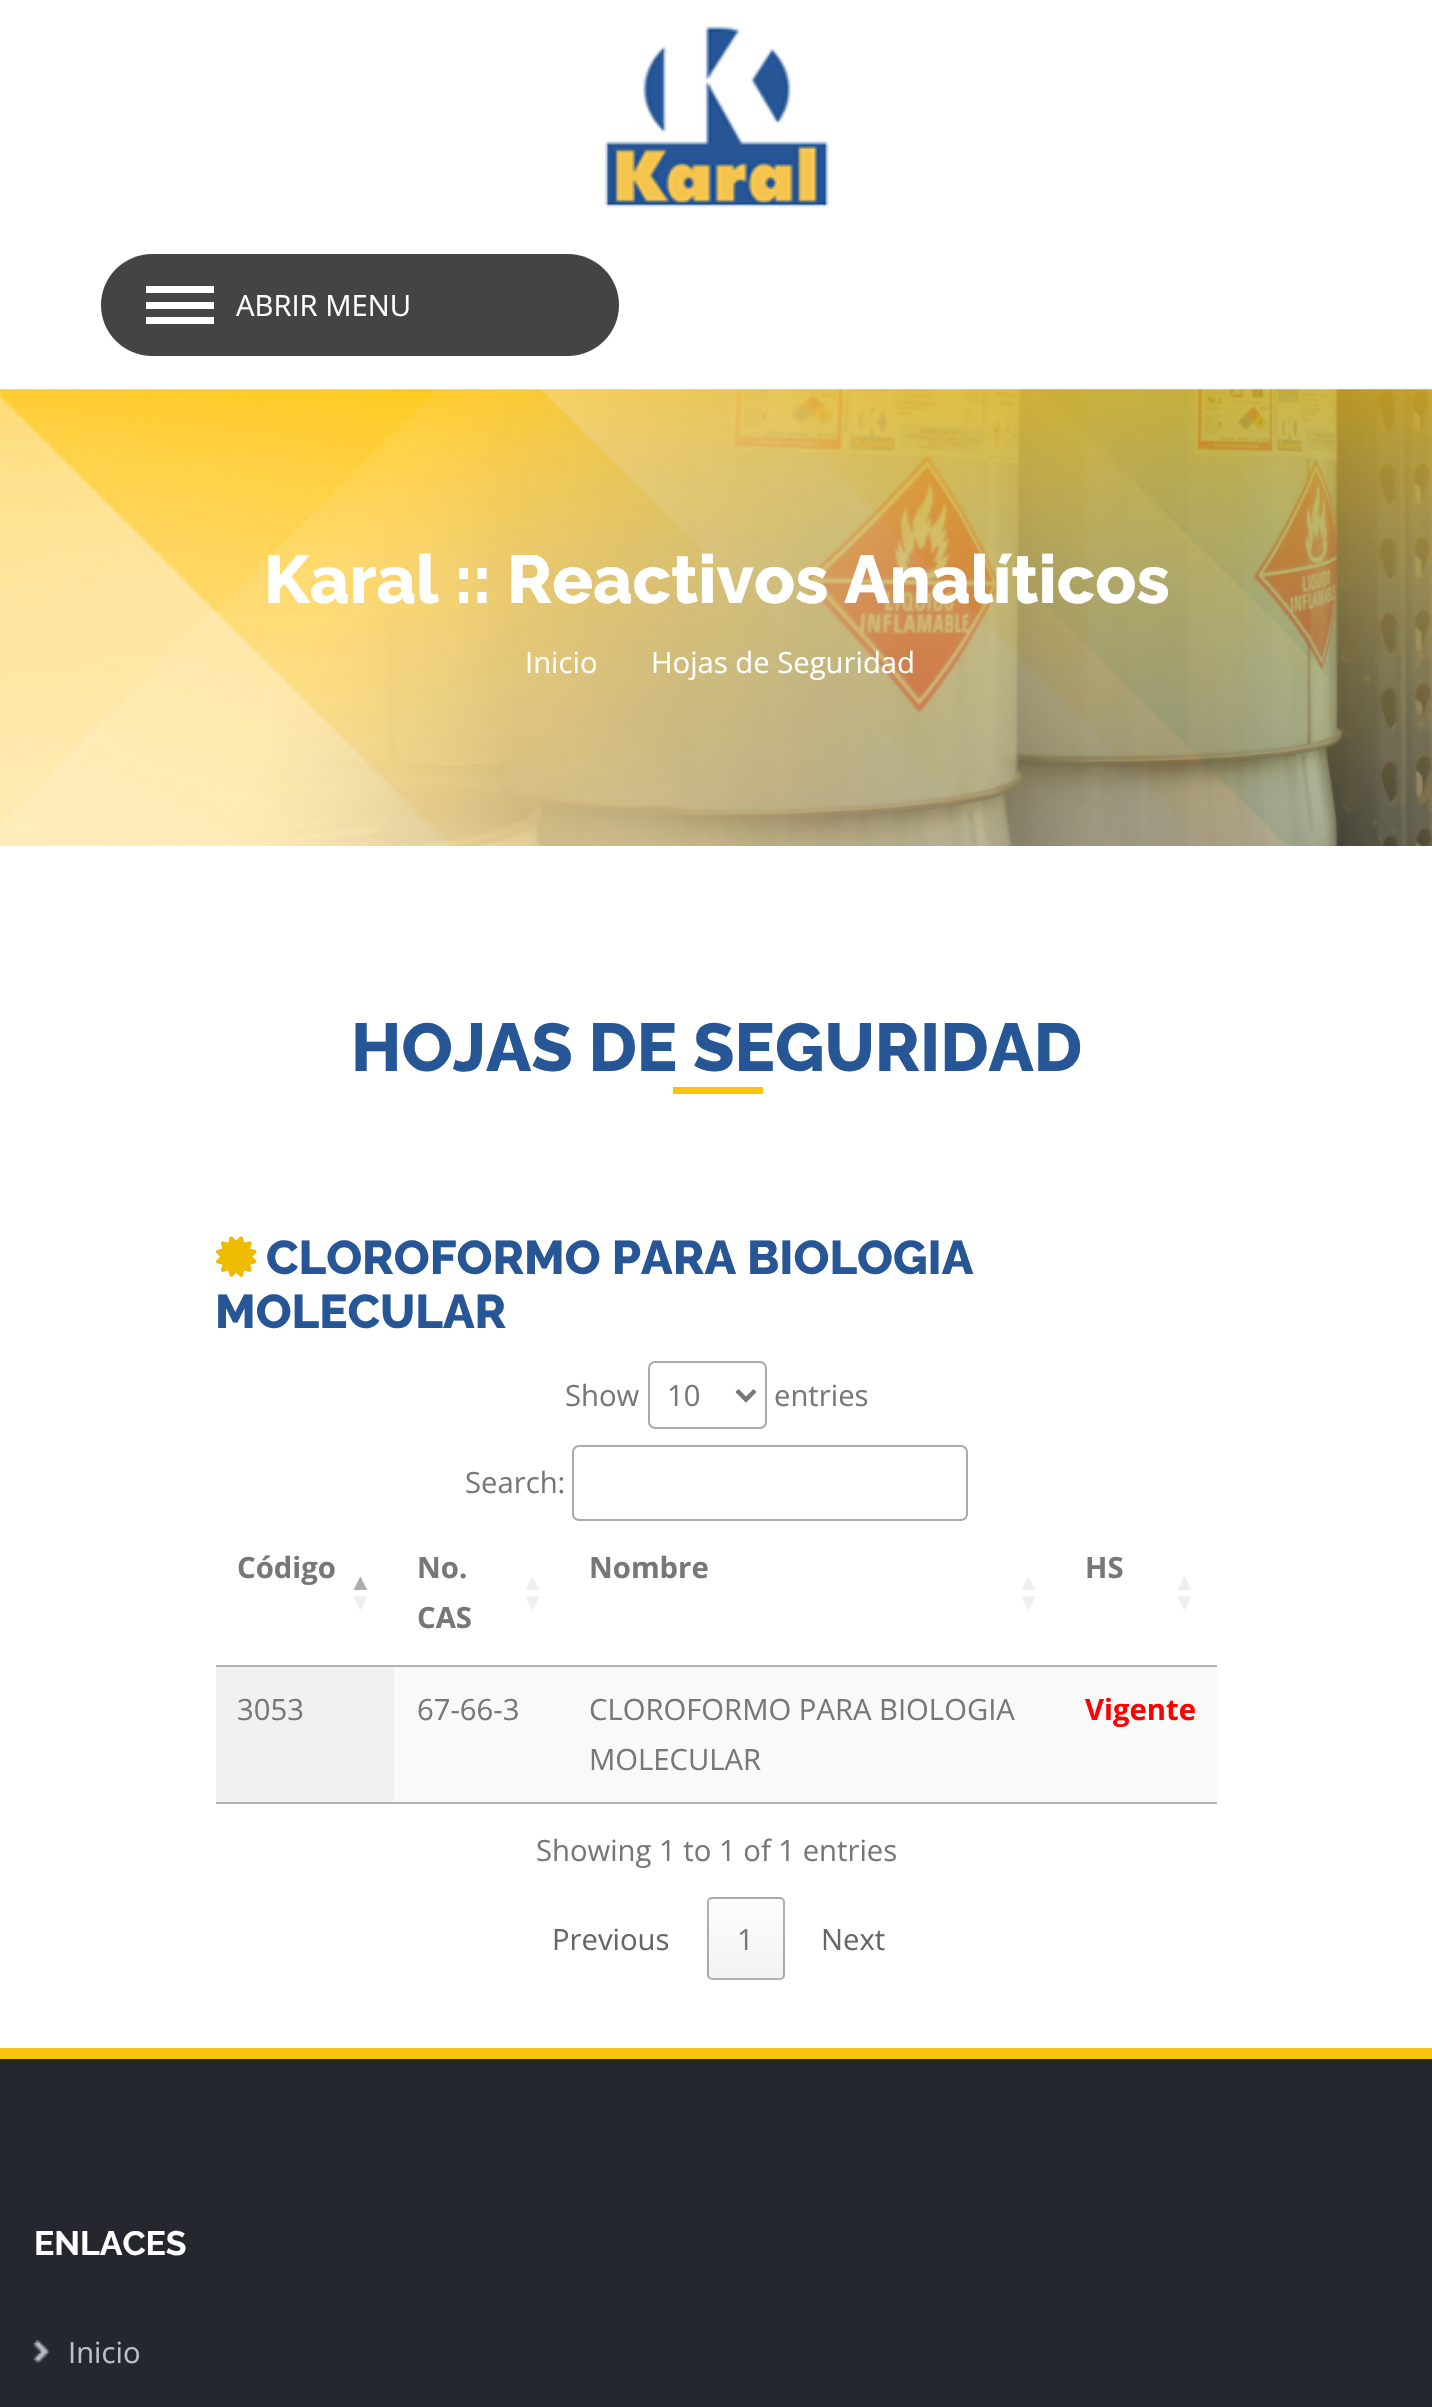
void draw(SkCanvas* canvas) {
	SkPaint paint;
	paint.setAntiAlias(true);
	auto svgPath = [&](const char* data, bool evenOdd = false) {
		SkPath result = *SkParsePath::FromSVGString(data);
		if (evenOdd) result.setFillType(SkPathFillType::kEvenOdd);
		return result;
	};
	canvas->clear(0xffffffff);
	canvas->drawImageRect(SkImages::DeferredFromEncodedData(SkData::MakeFromFileName("img1.png")), SkRect::MakeXYWH(604, 26, 225, 182), SkSamplingOptions());
	paint.setColor(0xff444444);
	canvas->drawRoundRect(SkRect::MakeXYWH(101, 254, 518, 102), 51, 51, paint);
	paint.setColor(0xffffffff);
	canvas->drawRect(SkRect::MakeXYWH(146, 317, 68, 7), paint);
	canvas->drawRect(SkRect::MakeXYWH(146, 302, 68, 7), paint);
	canvas->drawRect(SkRect::MakeXYWH(146, 286, 68, 7), paint);
	SkFont f1(fontMgr->matchFamilyStyle("Open Sans", SkFontStyle::Normal()), 29.25);
	f1.setSubpixel(true);
	canvas->drawString("ABRIR MENU", 236, 316, f1, paint);
	canvas->drawImageRect(SkImages::DeferredFromEncodedData(SkData::MakeFromFileName("img2.png")), SkRect::MakeXYWH(0, 389, 1432, 457), SkSamplingOptions());
	SkFont f2(fontMgr->matchFamilyStyle("Raleway", SkFontStyle(800, SkFontStyle::kNormal_Width, SkFontStyle::kUpright_Slant)), 67.5);
	f2.setSubpixel(true);
	canvas->drawString("Karal :: Reactivos Analíticos", 264, 603, f2, paint);
	canvas->drawString("Inicio", 525, 673, f1, paint);
	canvas->drawString("Hojas de Seguridad", 651, 673, f1, paint);
	paint.setColor(0xff265696);
	canvas->drawString("HOJAS DE SEGURIDAD", 351, 1071, f2, paint);
	paint.setColor(0xfffac312);
	canvas->drawRect(SkRect::MakeXYWH(673, 1087, 90, 7), paint);
	canvas->drawImageRect(SkImages::DeferredFromEncodedData(SkData::MakeFromFileName("img3.png")), SkRect::MakeXYWH(216, 1236, 41, 41), SkSamplingOptions());
	SkFont f3(fontMgr->matchFamilyStyle("Raleway", SkFontStyle(800, SkFontStyle::kNormal_Width, SkFontStyle::kUpright_Slant)), 47.25);
	f3.setSubpixel(true);
	paint.setColor(0xff265696);
	canvas->drawString("CLOROFORMO PARA BIOLOGIA", 266, 1274, f3, paint);
	canvas->drawString("MOLECULAR", 215, 1328, f3, paint);
	paint.setColor(0xff777777);
	canvas->drawString("Show", 565, 1406, f1, paint);
	paint.setStroke(true);
	paint.setStrokeWidth(2);
	paint.setColor(0xffaaaaaa);
	canvas->drawRoundRect(SkRect::MakeXYWH(649, 1362, 117, 66), 6, 6, paint);
	paint.setStrokeWidth(4.5);
	paint.setColor(0xff777777);
	canvas->drawPath(svgPath("M737 1390.5L746 1399.5L755 1390.5"), paint);
	paint.setStroke(false);
	canvas->drawString("10", 667, 1406, f1, paint);
	canvas->drawString("entries", 774, 1406, f1, paint);
	canvas->drawString("Search:", 465, 1493, f1, paint);
	paint.setStroke(true);
	paint.setStrokeWidth(2);
	paint.setColor(0xffaaaaaa);
	canvas->drawRoundRect(SkRect::MakeXYWH(573, 1446, 394, 74), 6, 6, paint);
	paint.setStroke(false);
	paint.setColor(0xffb3b3b3);
	canvas->drawRect(SkRect::MakeXYWH(216, 1802, 1001, 2), paint);
	canvas->drawRect(SkRect::MakeXYWH(216, 1665, 1001, 2), paint);
	SkFont f4(fontMgr->matchFamilyStyle("Open Sans", SkFontStyle::Bold()), 29.25);
	f4.setSubpixel(true);
	paint.setColor(0xff777777);
	canvas->drawString("Código", 237, 1578, f4, paint);
	SkFont f5(fontMgr->matchFamilyStyle("Liberation Sans", SkFontStyle::Bold()), 23);
	f5.setSubpixel(true);
	paint.setColor(0xffadadad);
	canvas->drawString("▲", 349, 1590, f5, paint);
	paint.setColor(0xffeeeeee);
	canvas->drawString("▼", 349, 1610, f5, paint);
	paint.setColor(0xff777777);
	canvas->drawString("No.", 417, 1578, f4, paint);
	paint.setColor(0xffeeeeee);
	canvas->drawString("▲", 521, 1590, f5, paint);
	canvas->drawString("▼", 521, 1610, f5, paint);
	paint.setColor(0xff777777);
	canvas->drawString("CAS", 417, 1628, f4, paint);
	canvas->drawString("Nombre", 589, 1578, f4, paint);
	paint.setColor(0xffeeeeee);
	canvas->drawString("▲", 1017, 1590, f5, paint);
	canvas->drawString("▼", 1017, 1610, f5, paint);
	paint.setColor(0xff777777);
	canvas->drawString("HS", 1085, 1578, f4, paint);
	paint.setColor(0xffeeeeee);
	canvas->drawString("▲", 1173, 1590, f5, paint);
	canvas->drawString("▼", 1173, 1610, f5, paint);
	paint.setColor(0xfff1f1f1);
	canvas->drawRect(SkRect::MakeXYWH(216, 1667, 178, 135), paint);
	paint.setColor(0xff777777);
	canvas->drawString("3053", 237, 1720, f1, paint);
	paint.setColor(0xfff9f9f9);
	canvas->drawRect(SkRect::MakeXYWH(394, 1667, 823, 135), paint);
	paint.setColor(0xff777777);
	canvas->drawString("67-66-3", 417, 1720, f1, paint);
	canvas->drawString("CLOROFORMO PARA BIOLOGIA", 589, 1720, f1, paint);
	canvas->drawString("MOLECULAR", 589, 1770, f1, paint);
	paint.setColor(0xfffc0303);
	canvas->drawString("Vigente", 1085, 1720, f4, paint);
	paint.setColor(0xff777777);
	canvas->drawString("Showing 1 to 1 of 1 entries", 536, 1861, f1, paint);
	paint.setColor(0xff666666);
	canvas->drawString("Previous", 552, 1950, f1, paint);
	canvas->save();
	canvas->clipPath(svgPath("M712 1897H780C783 1897 785 1899 785 1902V1975C785 1978 783 1980 780 1980H712C709 1980 707 1978 707 1975V1902C707 1899 709 1897 712 1897Z"), true);
	{
		const SkColor colors[] = {0xfffefefe, 0xfff2f2f2};
		const float stops[] = {0, 1};
		const SkPoint ends[] = {{746, 1820}, {746, 1899}};
		paint.setShader(SkGradientShader::MakeLinear(ends, colors, stops, 2, SkTileMode::kClamp));
		paint.setAlpha(255);
	}
	canvas->drawRect(SkRect::MakeXYWH(707, 1897, 78, 2), paint);
	{
		const SkColor colors[] = {0xfffefefe, 0xfff2f2f2};
		const float stops[] = {0, 1};
		const SkPoint ends[] = {{746, 1899}, {746, 1978}};
		paint.setShader(SkGradientShader::MakeLinear(ends, colors, stops, 2, SkTileMode::kClamp));
		paint.setAlpha(255);
	}
	canvas->drawRect(SkRect::MakeXYWH(707, 1899, 78, 79), paint);
	canvas->restore();
	paint.setStroke(true);
	paint.setShader(nullptr);
	paint.setColor(0x4d000000);
	canvas->drawRoundRect(SkRect::MakeXYWH(708, 1898, 76, 81), 4, 4, paint);
	paint.setStroke(false);
	paint.setColor(0xff777777);
	canvas->drawString("1", 737, 1950, f1, paint);
	paint.setColor(0xff666666);
	canvas->drawString("Next", 821, 1950, f1, paint);
	paint.setColor(0xff25272e);
	canvas->drawRect(SkRect::MakeXYWH(0, 2059, 1432, 348), paint);
	paint.setColor(0xfffac312);
	canvas->drawRect(SkRect::MakeXYWH(0, 2048, 1432, 11), paint);
	SkFont f6(fontMgr->matchFamilyStyle("Raleway", SkFontStyle::Bold()), 33.75);
	f6.setSubpixel(true);
	paint.setColor(0xffffffff);
	canvas->drawString("ENLACES", 34, 2255, f6, paint);
	canvas->drawImageRect(SkImages::DeferredFromEncodedData(SkData::MakeFromFileName("img4.png")), SkRect::MakeXYWH(33, 2340, 17, 23), SkSamplingOptions());
	paint.setColor(0xffbcc0c4);
	canvas->drawString("Inicio", 68, 2363, f1, paint);
}
